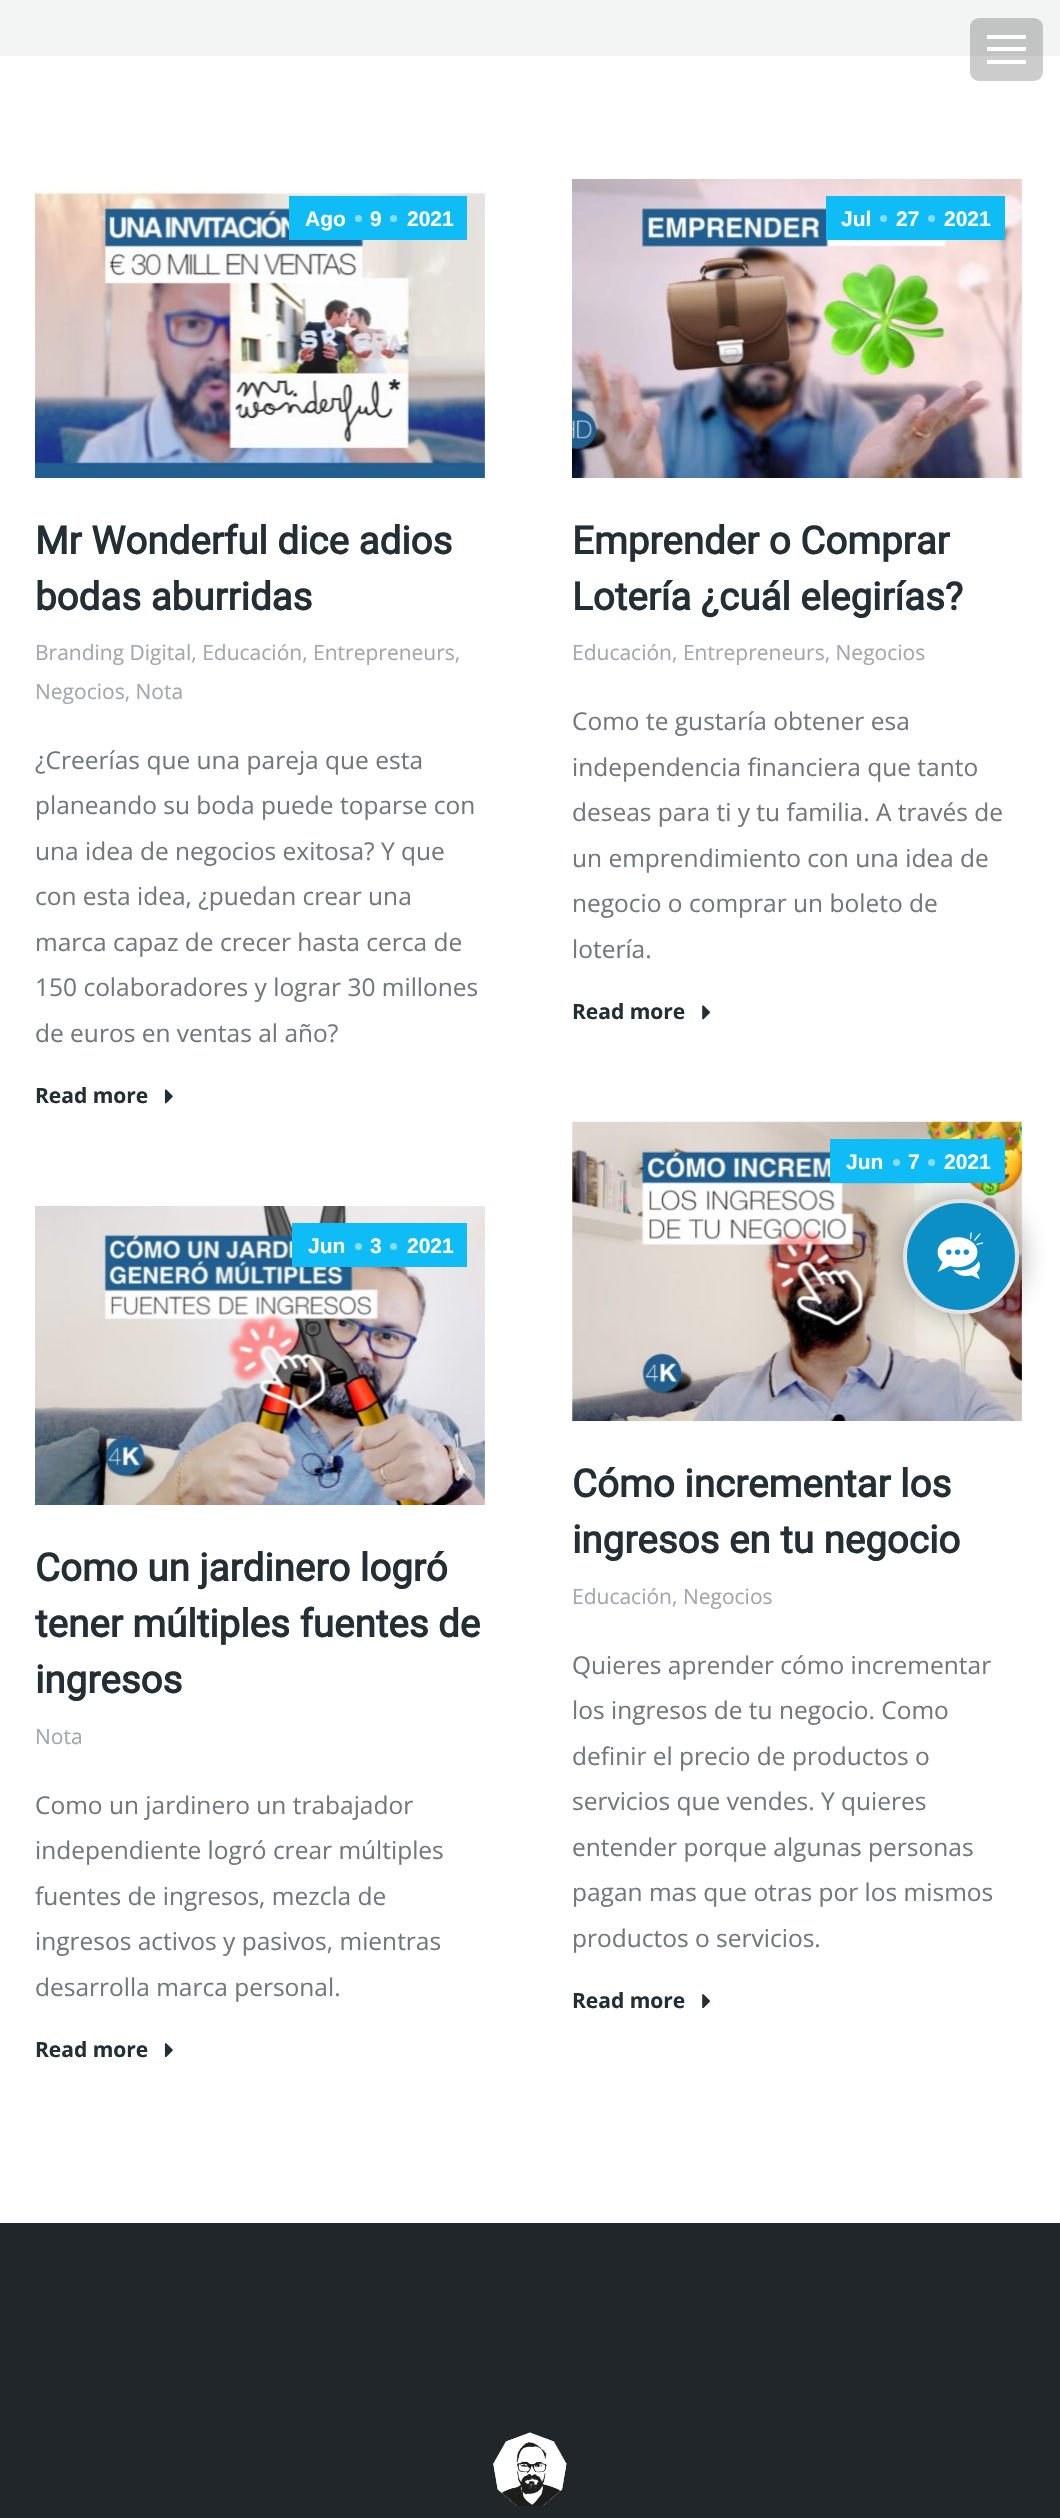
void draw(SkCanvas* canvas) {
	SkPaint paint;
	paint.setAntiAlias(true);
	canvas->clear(0xffffffff);
	paint.setColor(0xfff3f4f4);
	canvas->drawRect(SkRect::MakeXYWH(0, 0, 1060, 56), paint);
	paint.setColor(0x33000000);
	canvas->drawRoundRect(SkRect::MakeXYWH(970, 18, 73, 63), 9, 9, paint);
	paint.setColor(0xffffffff);
	canvas->drawRect(SkRect::MakeXYWH(987, 35, 39, 4), paint);
	canvas->drawRect(SkRect::MakeXYWH(987, 47, 39, 4), paint);
	canvas->drawRect(SkRect::MakeXYWH(987, 60, 39, 4), paint);
	canvas->drawImageRect(SkImages::DeferredFromEncodedData(SkData::MakeFromFileName("img1.png")), SkRect::MakeXYWH(35, 188, 450, 290), SkSamplingOptions());
	paint.setColor(0xff0fbcf5);
	canvas->drawRect(SkRect::MakeXYWH(289, 196, 178, 44), paint);
	SkFont f1(fontMgr->matchFamilyStyle("Liberation Sans", SkFontStyle::Bold()), 21);
	f1.setSubpixel(true);
	paint.setColor(0xffffffff);
	canvas->drawString("Ago", 305, 226, f1, paint);
	paint.setColor(0xff87defa);
	canvas->drawCircle(358.5, 218.5, 3.5, paint);
	paint.setColor(0xffffffff);
	canvas->drawString("9", 370, 226, f1, paint);
	paint.setColor(0xff87defa);
	canvas->drawCircle(393.5, 218.5, 3.5, paint);
	paint.setColor(0xffffffff);
	canvas->drawString("2021", 407, 226, f1, paint);
	SkFont f2(fontMgr->matchFamilyStyle("Roboto", SkFontStyle::Bold()), 38.5);
	f2.setSubpixel(true);
	paint.setColor(0xff242e35);
	canvas->drawString("Mr Wonderful dice adios", 35, 554, f2, paint);
	canvas->drawString("bodas aburridas", 35, 610, f2, paint);
	SkFont f3(fontMgr->matchFamilyStyle("Open Sans", SkFontStyle::Normal()), 21);
	f3.setSubpixel(true);
	paint.setColor(0xffa1a7ab);
	canvas->drawString("Branding Digital, Educación, Entrepreneurs,", 35, 660, f3, paint);
	canvas->drawString("Negocios, Nota", 35, 699, f3, paint);
	SkFont f4(fontMgr->matchFamilyStyle("Open Sans", SkFontStyle::Normal()), 24.5);
	f4.setSubpixel(true);
	paint.setColor(0xff71787c);
	canvas->drawString("¿Creerías que una pareja que esta", 35, 769, f4, paint);
	canvas->drawString("planeando su boda puede toparse con", 35, 814, f4, paint);
	canvas->drawString("una idea de negocios exitosa? Y que", 35, 860, f4, paint);
	canvas->drawString("con esta idea, ¿puedan crear una", 35, 905, f4, paint);
	canvas->drawString("marca capaz de crecer hasta cerca de", 35, 951, f4, paint);
	canvas->drawString("150 colaboradores y lograr 30 millones", 35, 996, f4, paint);
	canvas->drawString("de euros en ventas al año?", 35, 1042, f4, paint);
	SkFont f5(fontMgr->matchFamilyStyle("Open Sans", SkFontStyle::Bold()), 21);
	f5.setSubpixel(true);
	paint.setColor(0xff242e35);
	canvas->drawString("Read more", 35, 1103, f5, paint);
	canvas->drawImageRect(SkImages::DeferredFromEncodedData(SkData::MakeFromFileName("img2.png")), SkRect::MakeXYWH(164, 1089, 9, 15), SkSamplingOptions());
	canvas->drawImageRect(SkImages::DeferredFromEncodedData(SkData::MakeFromFileName("img3.png")), SkRect::MakeXYWH(572, 179, 450, 299), SkSamplingOptions());
	paint.setColor(0xff0fbcf5);
	canvas->drawRect(SkRect::MakeXYWH(826, 196, 179, 44), paint);
	paint.setColor(0xffffffff);
	canvas->drawString("Jul", 841, 226, f1, paint);
	paint.setColor(0xff87defa);
	canvas->drawCircle(883.5, 218.5, 3.5, paint);
	paint.setColor(0xffffffff);
	canvas->drawString("27", 896, 226, f1, paint);
	paint.setColor(0xff87defa);
	canvas->drawCircle(931.5, 218.5, 3.5, paint);
	paint.setColor(0xffffffff);
	canvas->drawString("2021", 944, 226, f1, paint);
	paint.setColor(0xff242e35);
	canvas->drawString("Emprender o Comprar", 572, 554, f2, paint);
	canvas->drawString("Lotería ¿cuál elegirías?", 572, 610, f2, paint);
	paint.setColor(0xffa1a7ab);
	canvas->drawString("Educación, Entrepreneurs, Negocios", 572, 660, f3, paint);
	paint.setColor(0xff71787c);
	canvas->drawString("Como te gustaría obtener esa", 572, 730, f4, paint);
	canvas->drawString("independencia financiera que tanto", 572, 776, f4, paint);
	canvas->drawString("deseas para ti y tu familia. A través de", 572, 821, f4, paint);
	canvas->drawString("un emprendimiento con una idea de", 572, 867, f4, paint);
	canvas->drawString("negocio o comprar un boleto de", 572, 912, f4, paint);
	canvas->drawString("lotería.", 572, 958, f4, paint);
	paint.setColor(0xff242e35);
	canvas->drawString("Read more", 572, 1019, f5, paint);
	canvas->drawImageRect(SkImages::DeferredFromEncodedData(SkData::MakeFromFileName("img4.png")), SkRect::MakeXYWH(702, 1005, 8, 15), SkSamplingOptions());
	canvas->drawImageRect(SkImages::DeferredFromEncodedData(SkData::MakeFromFileName("img5.png")), SkRect::MakeXYWH(35, 1206, 450, 299), SkSamplingOptions());
	paint.setColor(0xff0fbcf5);
	canvas->drawRect(SkRect::MakeXYWH(292, 1223, 175, 44), paint);
	paint.setColor(0xffffffff);
	canvas->drawString("Jun", 308, 1253, f1, paint);
	paint.setColor(0xff87defa);
	canvas->drawCircle(358.5, 1246.5, 3.5, paint);
	paint.setColor(0xffffffff);
	canvas->drawString("3", 370, 1253, f1, paint);
	paint.setColor(0xff87defa);
	canvas->drawCircle(393.5, 1246.5, 3.5, paint);
	paint.setColor(0xffffffff);
	canvas->drawString("2021", 407, 1253, f1, paint);
	paint.setColor(0xff242e35);
	canvas->drawString("Como un jardinero logró", 35, 1581, f2, paint);
	canvas->drawString("tener múltiples fuentes de", 35, 1637, f2, paint);
	canvas->drawString("ingresos", 35, 1693, f2, paint);
	paint.setColor(0xffa1a7ab);
	canvas->drawString("Nota", 35, 1744, f3, paint);
	paint.setColor(0xff71787c);
	canvas->drawString("Como un jardinero un trabajador", 35, 1814, f4, paint);
	canvas->drawString("independiente logró crear múltiples", 35, 1859, f4, paint);
	canvas->drawString("fuentes de ingresos, mezcla de", 35, 1905, f4, paint);
	canvas->drawString("ingresos activos y pasivos, mientras", 35, 1950, f4, paint);
	canvas->drawString("desarrolla marca personal.", 35, 1996, f4, paint);
	paint.setColor(0xff242e35);
	canvas->drawString("Read more", 35, 2057, f5, paint);
	canvas->drawImageRect(SkImages::DeferredFromEncodedData(SkData::MakeFromFileName("img6.png")), SkRect::MakeXYWH(164, 2043, 9, 15), SkSamplingOptions());
	canvas->drawImageRect(SkImages::DeferredFromEncodedData(SkData::MakeFromFileName("img7.png")), SkRect::MakeXYWH(572, 1121, 450, 300), SkSamplingOptions());
	paint.setColor(0xff0fbcf5);
	canvas->drawRect(SkRect::MakeXYWH(830, 1139, 175, 44), paint);
	paint.setColor(0xffffffff);
	canvas->drawString("Jun", 846, 1169, f1, paint);
	paint.setColor(0xff87defa);
	canvas->drawCircle(896.5, 1162.5, 3.5, paint);
	paint.setColor(0xffffffff);
	canvas->drawString("7", 908, 1169, f1, paint);
	paint.setColor(0xff87defa);
	canvas->drawCircle(931.5, 1162.5, 3.5, paint);
	paint.setColor(0xffffffff);
	canvas->drawString("2021", 944, 1169, f1, paint);
	paint.setColor(0xff242e35);
	canvas->drawString("Cómo incrementar los", 572, 1497, f2, paint);
	canvas->drawString("ingresos en tu negocio", 572, 1553, f2, paint);
	paint.setColor(0xffa1a7ab);
	canvas->drawString("Educación, Negocios", 572, 1604, f3, paint);
	paint.setColor(0xff71787c);
	canvas->drawString("Quieres aprender cómo incrementar", 572, 1674, f4, paint);
	canvas->drawString("los ingresos de tu negocio. Como", 572, 1719, f4, paint);
	canvas->drawString("definir el precio de productos o", 572, 1765, f4, paint);
	canvas->drawString("servicios que vendes. Y quieres", 572, 1810, f4, paint);
	canvas->drawString("entender porque algunas personas", 572, 1856, f4, paint);
	canvas->drawString("pagan mas que otras por los mismos", 572, 1901, f4, paint);
	canvas->drawString("productos o servicios.", 572, 1947, f4, paint);
	paint.setColor(0xff242e35);
	canvas->drawString("Read more", 572, 2008, f5, paint);
	canvas->drawImageRect(SkImages::DeferredFromEncodedData(SkData::MakeFromFileName("img8.png")), SkRect::MakeXYWH(702, 1994, 8, 15), SkSamplingOptions());
	paint.setColor(0xff20262a);
	canvas->drawRect(SkRect::MakeXYWH(0, 2223, 1060, 295), paint);
	canvas->drawImageRect(SkImages::DeferredFromEncodedData(SkData::MakeFromFileName("img9.png")), SkRect::MakeXYWH(493, 2432, 74, 74), SkSamplingOptions());
	paint.setColor(0x80323232);
	paint.setMaskFilter(SkMaskFilter::MakeBlur(kNormal_SkBlurStyle, 15));
	canvas->drawRoundRect(SkRect::MakeXYWH(903, 1199, 116, 115), 57.5, 57.5, paint);
	paint.setMaskFilter(nullptr);
	paint.setColor(0xff0c8fc4);
	canvas->drawRoundRect(SkRect::MakeXYWH(905, 1201, 112, 111), 55.5, 55.5, paint);
	paint.setStroke(true);
	paint.setStrokeWidth(4);
	paint.setColor(0xffe3e3e3);
	canvas->drawRoundRect(SkRect::MakeXYWH(905, 1201, 112, 111), 55.5, 55.5, paint);
	canvas->drawImageRect(SkImages::DeferredFromEncodedData(SkData::MakeFromFileName("img10.png")), SkRect::MakeXYWH(937, 1232, 47, 48), SkSamplingOptions());
}
